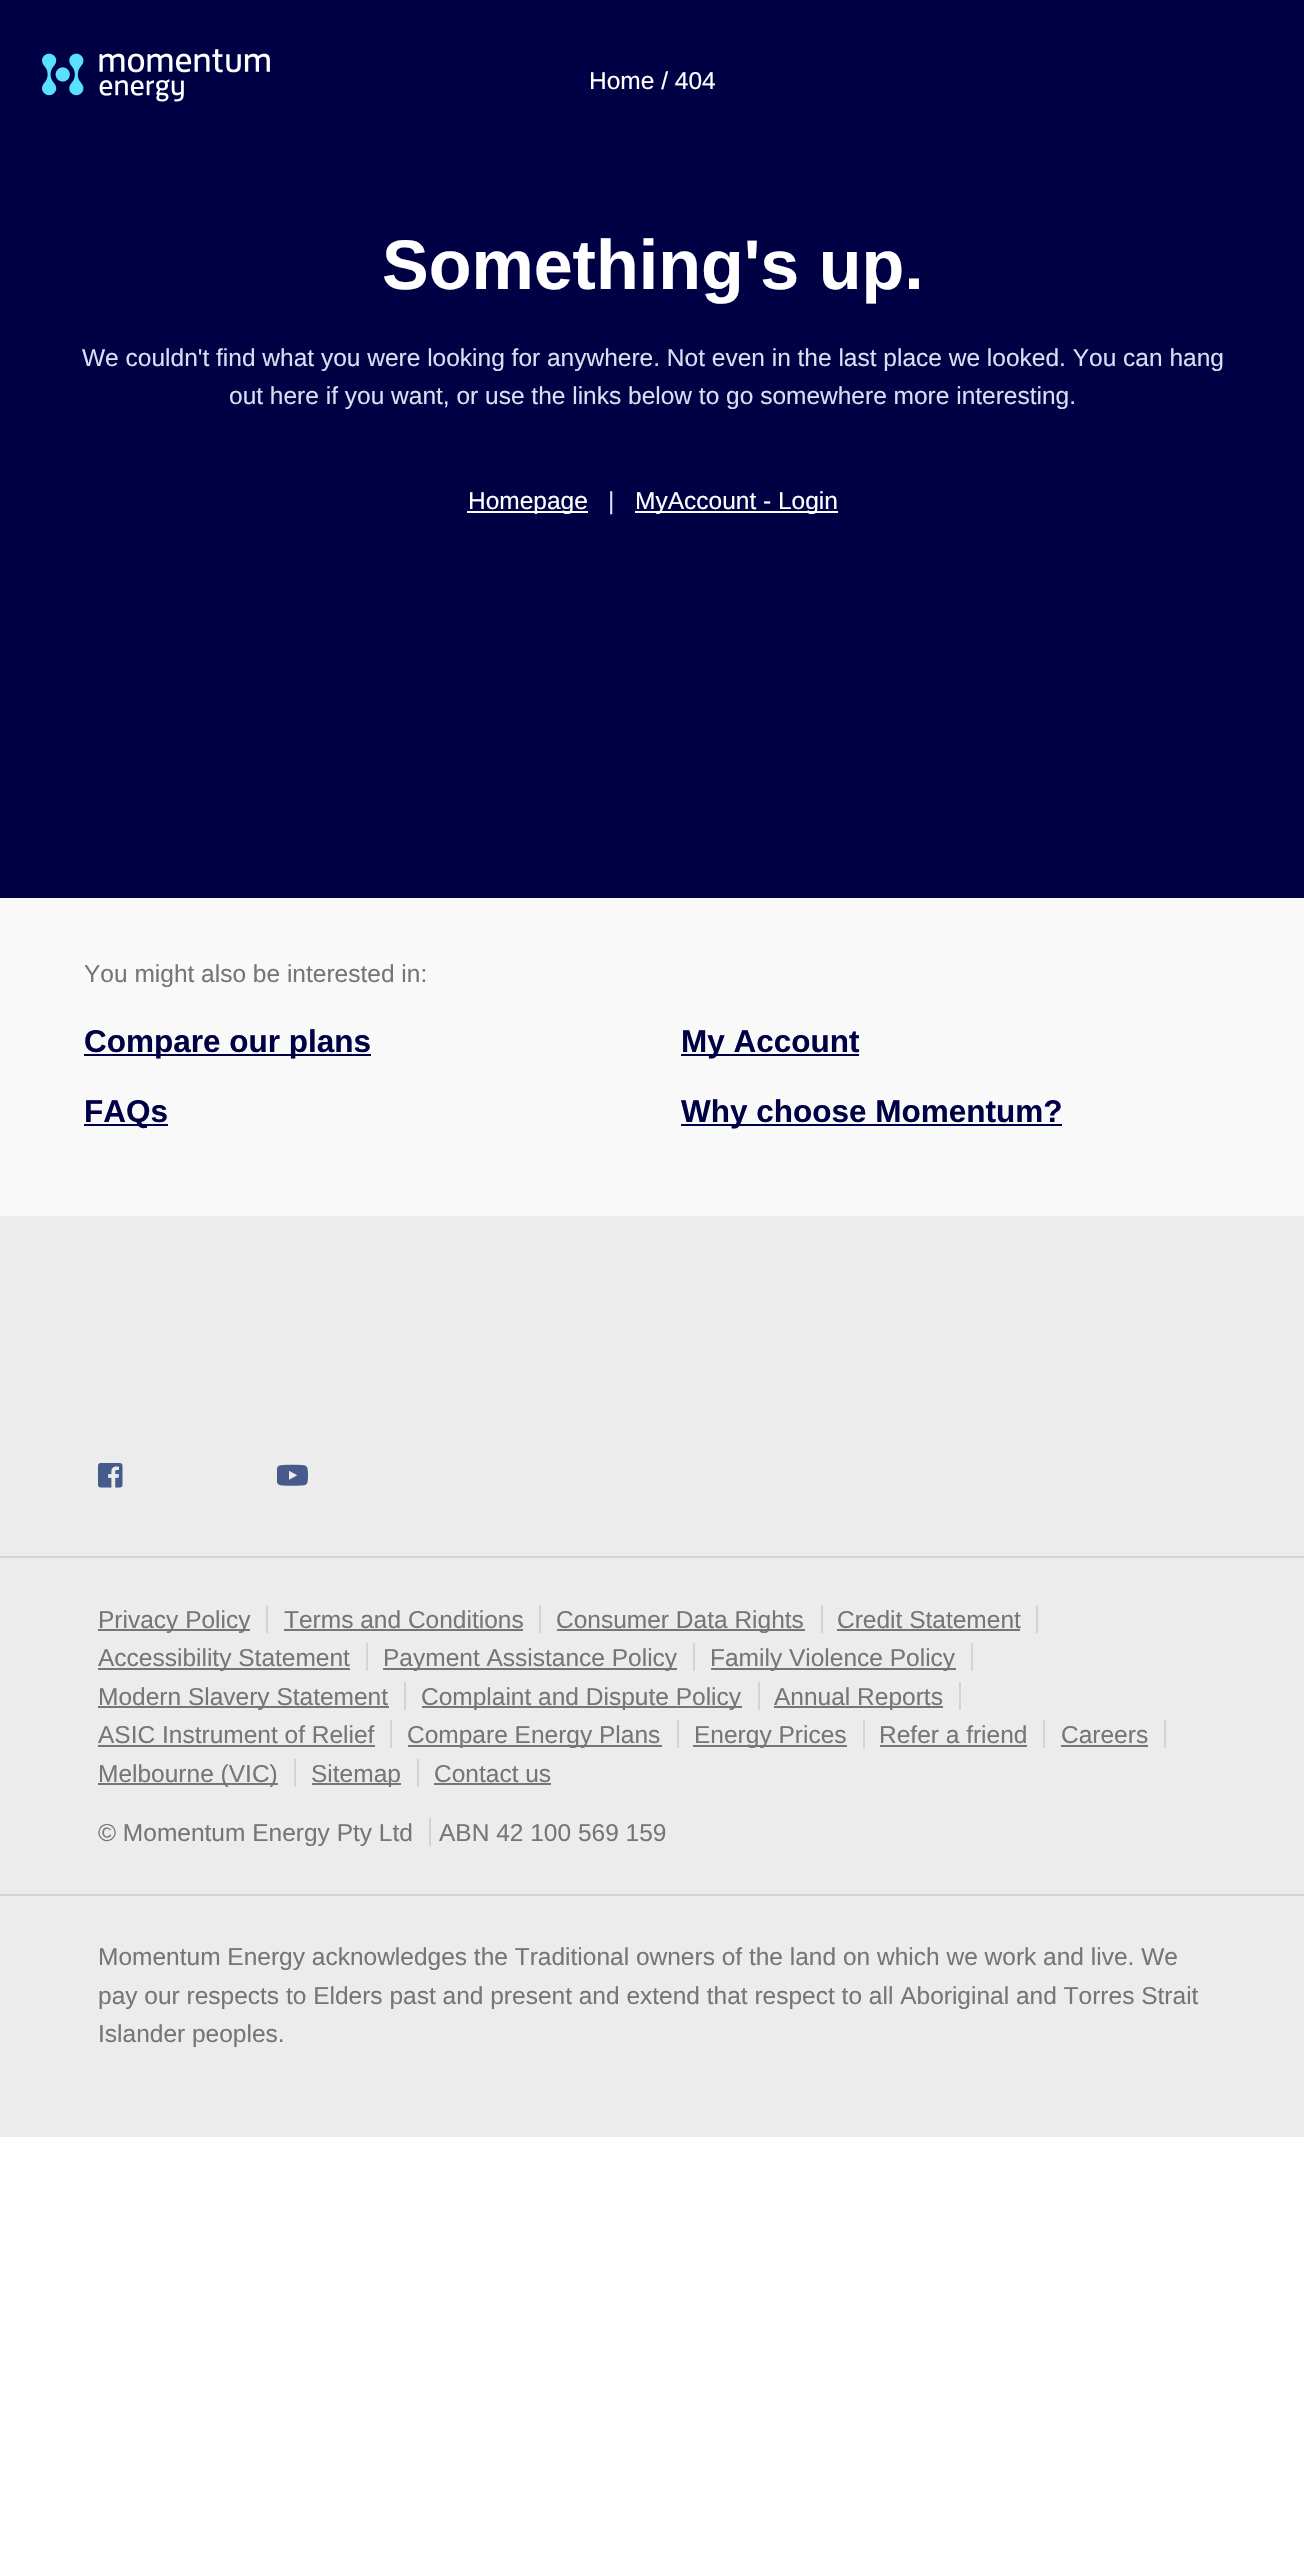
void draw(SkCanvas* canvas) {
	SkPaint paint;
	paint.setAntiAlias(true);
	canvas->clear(0xffffffff);
	paint.setColor(0xff000045);
	canvas->drawRect(SkRect::MakeXYWH(0, 0, 1304, 898), paint);
	canvas->drawImageRect(SkImages::DeferredFromEncodedData(SkData::MakeFromFileName("img1.png")), SkRect::MakeXYWH(42, 49, 228, 53), SkSamplingOptions());
	SkFont f1(fontMgr->matchFamilyStyle("Liberation Sans", SkFontStyle::Normal()), 24.5);
	f1.setSubpixel(true);
	paint.setColor(0xffffffff);
	canvas->drawString("Home / 404", 589, 89, f1, paint);
	SkFont f2(fontMgr->matchFamilyStyle("Liberation Sans", SkFontStyle::Bold()), 70);
	f2.setSubpixel(true);
	canvas->drawString("Something's up.", 382, 289, f2, paint);
	paint.setColor(0xffd8dff3);
	canvas->drawString("We couldn't find what you were looking for anywhere. Not even in the last place we looked. You can hang", 82, 366, f1, paint);
	canvas->drawString("out here if you want, or use the links below to go somewhere more interesting.", 229, 404, f1, paint);
	paint.setColor(0xffffffff);
	canvas->drawRect(SkRect::MakeXYWH(467, 511, 121, 2), paint);
	canvas->drawString("Homepage", 468, 509, f1, paint);
	paint.setColor(0xffd8dff3);
	canvas->drawString("|", 608, 509, f1, paint);
	paint.setColor(0xffffffff);
	canvas->drawRect(SkRect::MakeXYWH(635, 511, 203, 2), paint);
	canvas->drawString("MyAccount - Login", 635, 509, f1, paint);
	paint.setColor(0xfff9f9f9);
	canvas->drawRect(SkRect::MakeXYWH(0, 898, 1304, 318), paint);
	paint.setColor(0xff757676);
	canvas->drawString("You might also be interested in:", 84, 982, f1, paint);
	paint.setColor(0xff000045);
	canvas->drawRect(SkRect::MakeXYWH(84, 1054, 287, 2), paint);
	SkFont f3(fontMgr->matchFamilyStyle("Liberation Sans", SkFontStyle::Bold()), 31.5);
	f3.setSubpixel(true);
	canvas->drawString("Compare our plans", 84, 1052, f3, paint);
	canvas->drawRect(SkRect::MakeXYWH(84, 1124, 84, 2), paint);
	canvas->drawString("FAQs", 84, 1122, f3, paint);
	canvas->drawRect(SkRect::MakeXYWH(681, 1054, 178, 2), paint);
	canvas->drawString("My Account", 681, 1052, f3, paint);
	canvas->drawRect(SkRect::MakeXYWH(681, 1124, 381, 2), paint);
	canvas->drawString("Why choose Momentum?", 681, 1122, f3, paint);
	paint.setColor(0xffececed);
	canvas->drawRect(SkRect::MakeXYWH(0, 1216, 1304, 340), paint);
	canvas->drawImageRect(SkImages::DeferredFromEncodedData(SkData::MakeFromFileName("img2.png")), SkRect::MakeXYWH(98, 1463, 25, 25), SkSamplingOptions());
	canvas->drawImageRect(SkImages::DeferredFromEncodedData(SkData::MakeFromFileName("img3.png")), SkRect::MakeXYWH(277, 1464, 31, 22), SkSamplingOptions());
	canvas->drawRect(SkRect::MakeXYWH(0, 1558, 1304, 336), paint);
	paint.setColor(0xffd4d4d5);
	canvas->drawRect(SkRect::MakeXYWH(0, 1556, 1304, 2), paint);
	paint.setColor(0xff757676);
	canvas->drawRect(SkRect::MakeXYWH(98, 1629, 152, 2), paint);
	canvas->drawString("Privacy Policy", 98, 1628, f1, paint);
	paint.setColor(0xffd4d4d5);
	canvas->drawRect(SkRect::MakeXYWH(266, 1605, 2, 28), paint);
	paint.setColor(0xff757676);
	canvas->drawString("Terms and Conditions", 284, 1628, f1, paint);
	canvas->drawRect(SkRect::MakeXYWH(284, 1629, 239, 2), paint);
	paint.setColor(0xffd4d4d5);
	canvas->drawRect(SkRect::MakeXYWH(539, 1605, 2, 28), paint);
	paint.setColor(0xff757676);
	canvas->drawRect(SkRect::MakeXYWH(557, 1629, 248, 2), paint);
	canvas->drawString("Consumer Data Rights", 556, 1628, f1, paint);
	paint.setColor(0xffd4d4d5);
	canvas->drawRect(SkRect::MakeXYWH(821, 1605, 2, 28), paint);
	paint.setColor(0xff757676);
	canvas->drawString("Credit Statement", 837, 1628, f1, paint);
	canvas->drawRect(SkRect::MakeXYWH(837, 1629, 183, 2), paint);
	paint.setColor(0xffd4d4d5);
	canvas->drawRect(SkRect::MakeXYWH(1036, 1605, 2, 28), paint);
	paint.setColor(0xff757676);
	canvas->drawRect(SkRect::MakeXYWH(98, 1668, 252, 2), paint);
	canvas->drawString("Accessibility Statement", 98, 1666, f1, paint);
	paint.setColor(0xffd4d4d5);
	canvas->drawRect(SkRect::MakeXYWH(366, 1643, 2, 28), paint);
	paint.setColor(0xff757676);
	canvas->drawRect(SkRect::MakeXYWH(383, 1668, 294, 2), paint);
	canvas->drawString("Payment Assistance Policy", 383, 1666, f1, paint);
	paint.setColor(0xffd4d4d5);
	canvas->drawRect(SkRect::MakeXYWH(693, 1643, 2, 28), paint);
	paint.setColor(0xff757676);
	canvas->drawRect(SkRect::MakeXYWH(711, 1668, 245, 2), paint);
	canvas->drawString("Family Violence Policy", 710, 1666, f1, paint);
	paint.setColor(0xffd4d4d5);
	canvas->drawRect(SkRect::MakeXYWH(971, 1643, 2, 28), paint);
	paint.setColor(0xff757676);
	canvas->drawRect(SkRect::MakeXYWH(98, 1706, 291, 2), paint);
	canvas->drawString("Modern Slavery Statement", 98, 1705, f1, paint);
	paint.setColor(0xffd4d4d5);
	canvas->drawRect(SkRect::MakeXYWH(404, 1682, 2, 28), paint);
	paint.setColor(0xff757676);
	canvas->drawRect(SkRect::MakeXYWH(422, 1706, 320, 2), paint);
	canvas->drawString("Complaint and Dispute Policy", 421, 1705, f1, paint);
	paint.setColor(0xffd4d4d5);
	canvas->drawRect(SkRect::MakeXYWH(758, 1682, 2, 28), paint);
	paint.setColor(0xff757676);
	canvas->drawRect(SkRect::MakeXYWH(774, 1706, 169, 2), paint);
	canvas->drawString("Annual Reports", 774, 1705, f1, paint);
	paint.setColor(0xffd4d4d5);
	canvas->drawRect(SkRect::MakeXYWH(959, 1682, 2, 28), paint);
	paint.setColor(0xff757676);
	canvas->drawString("ASIC Instrument of Relief", 98, 1743, f1, paint);
	canvas->drawRect(SkRect::MakeXYWH(98, 1745, 277, 2), paint);
	paint.setColor(0xffd4d4d5);
	canvas->drawRect(SkRect::MakeXYWH(390, 1720, 2, 28), paint);
	paint.setColor(0xff757676);
	canvas->drawRect(SkRect::MakeXYWH(408, 1745, 254, 2), paint);
	canvas->drawString("Compare Energy Plans", 407, 1743, f1, paint);
	paint.setColor(0xffd4d4d5);
	canvas->drawRect(SkRect::MakeXYWH(677, 1720, 2, 28), paint);
	paint.setColor(0xff757676);
	canvas->drawRect(SkRect::MakeXYWH(693, 1745, 154, 2), paint);
	canvas->drawString("Energy Prices", 694, 1743, f1, paint);
	paint.setColor(0xffd4d4d5);
	canvas->drawRect(SkRect::MakeXYWH(863, 1720, 2, 28), paint);
	paint.setColor(0xff757676);
	canvas->drawString("Refer a friend", 879, 1743, f1, paint);
	canvas->drawRect(SkRect::MakeXYWH(880, 1745, 147, 2), paint);
	paint.setColor(0xffd4d4d5);
	canvas->drawRect(SkRect::MakeXYWH(1043, 1720, 2, 28), paint);
	paint.setColor(0xff757676);
	canvas->drawString("Careers", 1061, 1743, f1, paint);
	canvas->drawRect(SkRect::MakeXYWH(1061, 1745, 87, 2), paint);
	paint.setColor(0xffd4d4d5);
	canvas->drawRect(SkRect::MakeXYWH(1164, 1720, 2, 28), paint);
	paint.setColor(0xff757676);
	canvas->drawRect(SkRect::MakeXYWH(98, 1783, 180, 2), paint);
	canvas->drawString("Melbourne (VIC)", 98, 1782, f1, paint);
	paint.setColor(0xffd4d4d5);
	canvas->drawRect(SkRect::MakeXYWH(294, 1759, 2, 28), paint);
	paint.setColor(0xff757676);
	canvas->drawRect(SkRect::MakeXYWH(312, 1783, 89, 2), paint);
	canvas->drawString("Sitemap", 311, 1782, f1, paint);
	paint.setColor(0xffd4d4d5);
	canvas->drawRect(SkRect::MakeXYWH(417, 1759, 2, 28), paint);
	paint.setColor(0xff757676);
	canvas->drawString("Contact us", 434, 1782, f1, paint);
	canvas->drawRect(SkRect::MakeXYWH(434, 1783, 117, 2), paint);
	canvas->drawString("© Momentum Energy Pty Ltd", 98, 1841, f1, paint);
	paint.setColor(0xffd4d4d5);
	canvas->drawRect(SkRect::MakeXYWH(429, 1818, 2, 28), paint);
	paint.setColor(0xff757676);
	canvas->drawString("ABN 42 100 569 159", 439, 1841, f1, paint);
	paint.setColor(0xffececed);
	canvas->drawRect(SkRect::MakeXYWH(0, 1896, 1304, 241), paint);
	paint.setColor(0xffd4d4d5);
	canvas->drawRect(SkRect::MakeXYWH(0, 1894, 1304, 2), paint);
	paint.setColor(0xff757676);
	canvas->drawString("Momentum Energy acknowledges the Traditional owners of the land on which we work and live. We", 98, 1965, f1, paint);
	canvas->drawString("pay our respects to Elders past and present and extend that respect to all Aboriginal and Torres Strait", 98, 2004, f1, paint);
	canvas->drawString("Islander peoples.", 98, 2042, f1, paint);
}
